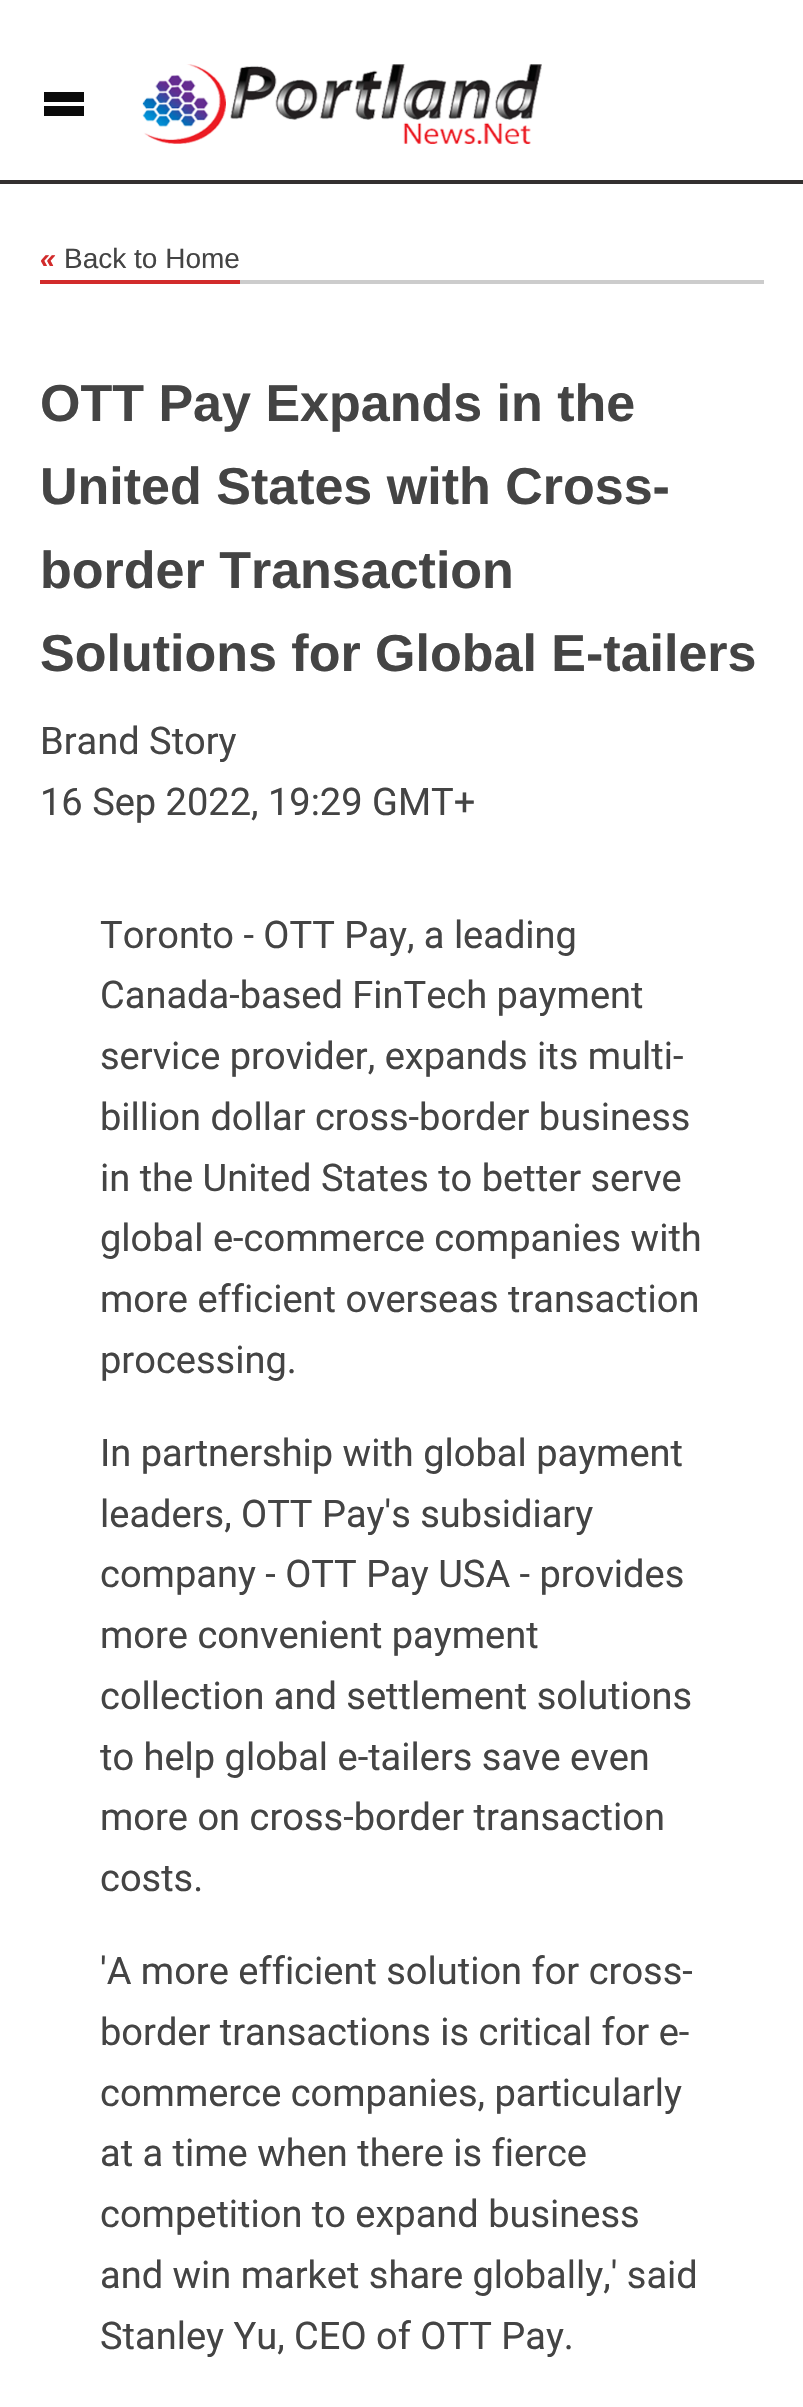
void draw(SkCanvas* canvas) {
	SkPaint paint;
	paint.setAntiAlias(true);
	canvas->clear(0xffffffff);
	paint.setColor(0xff333030);
	canvas->drawRect(SkRect::MakeXYWH(0, 180, 803, 4), paint);
	paint.setColor(0xff0a0a0a);
	canvas->drawRect(SkRect::MakeXYWH(44, 92, 40, 24), paint);
	paint.setColor(0xfffefefe);
	canvas->drawRect(SkRect::MakeXYWH(44, 102, 40, 4), paint);
	canvas->drawImageRect(SkImages::DeferredFromEncodedData(SkData::MakeFromFileName("img1.png")), SkRect::MakeXYWH(142, 64, 400, 80), SkSamplingOptions());
	paint.setColor(0xffcccccc);
	canvas->drawRect(SkRect::MakeXYWH(240, 280, 524, 4), paint);
	SkFont f1(fontMgr->matchFamilyStyle("Liberation Sans", SkFontStyle::BoldItalic()), 28);
	f1.setSubpixel(true);
	paint.setColor(0xffd22b2b);
	canvas->drawString("«", 40, 268, f1, paint);
	SkFont f2(fontMgr->matchFamilyStyle("Liberation Sans", SkFontStyle::Normal()), 28);
	f2.setSubpixel(true);
	paint.setColor(0xff444444);
	canvas->drawString("Back to Home", 64, 268, f2, paint);
	paint.setColor(0xffd22b2b);
	canvas->drawRect(SkRect::MakeXYWH(40, 280, 200, 4), paint);
	SkFont f3(fontMgr->matchFamilyStyle("Liberation Sans", SkFontStyle::Bold()), 52);
	f3.setSubpixel(true);
	paint.setColor(0xff444444);
	canvas->drawString("OTT Pay Expands in the", 40, 421, f3, paint);
	canvas->drawString("United States with Cross-", 40, 504, f3, paint);
	canvas->drawString("border Transaction", 40, 588, f3, paint);
	canvas->drawString("Solutions for Global E-tailers", 40, 671, f3, paint);
	SkFont f4(fontMgr->matchFamilyStyle("Roboto", SkFontStyle::Normal()), 38);
	f4.setSubpixel(true);
	canvas->drawString("Brand Story", 40, 754, f4, paint);
	canvas->drawString("16 Sep 2022, 19:29 GMT+", 40, 815, f4, paint);
	canvas->drawString("Toronto - OTT Pay, a leading", 100, 948, f4, paint);
	canvas->drawString("Canada-based FinTech payment", 100, 1008, f4, paint);
	canvas->drawString("service provider, expands its multi-", 100, 1069, f4, paint);
	canvas->drawString("billion dollar cross-border business", 100, 1130, f4, paint);
	canvas->drawString("in the United States to better serve", 100, 1191, f4, paint);
	canvas->drawString("global e-commerce companies with", 100, 1251, f4, paint);
	canvas->drawString("more efficient overseas transaction", 100, 1312, f4, paint);
	canvas->drawString("processing.", 100, 1373, f4, paint);
	canvas->drawString("In partnership with global payment", 100, 1466, f4, paint);
	canvas->drawString("leaders, OTT Pay's subsidiary", 100, 1527, f4, paint);
	canvas->drawString("company - OTT Pay USA - provides", 100, 1587, f4, paint);
	canvas->drawString("more convenient payment", 100, 1648, f4, paint);
	canvas->drawString("collection and settlement solutions", 100, 1709, f4, paint);
	canvas->drawString("to help global e-tailers save even", 100, 1770, f4, paint);
	canvas->drawString("more on cross-border transaction", 100, 1830, f4, paint);
	canvas->drawString("costs.", 100, 1891, f4, paint);
	canvas->drawString("'A more efficient solution for cross-", 100, 1984, f4, paint);
	canvas->drawString("border transactions is critical for e-", 100, 2045, f4, paint);
	canvas->drawString("commerce companies, particularly", 100, 2106, f4, paint);
	canvas->drawString("at a time when there is fierce", 100, 2166, f4, paint);
	canvas->drawString("competition to expand business", 100, 2227, f4, paint);
	canvas->drawString("and win market share globally,' said", 100, 2288, f4, paint);
	canvas->drawString("Stanley Yu, CEO of OTT Pay.", 100, 2349, f4, paint);
}
